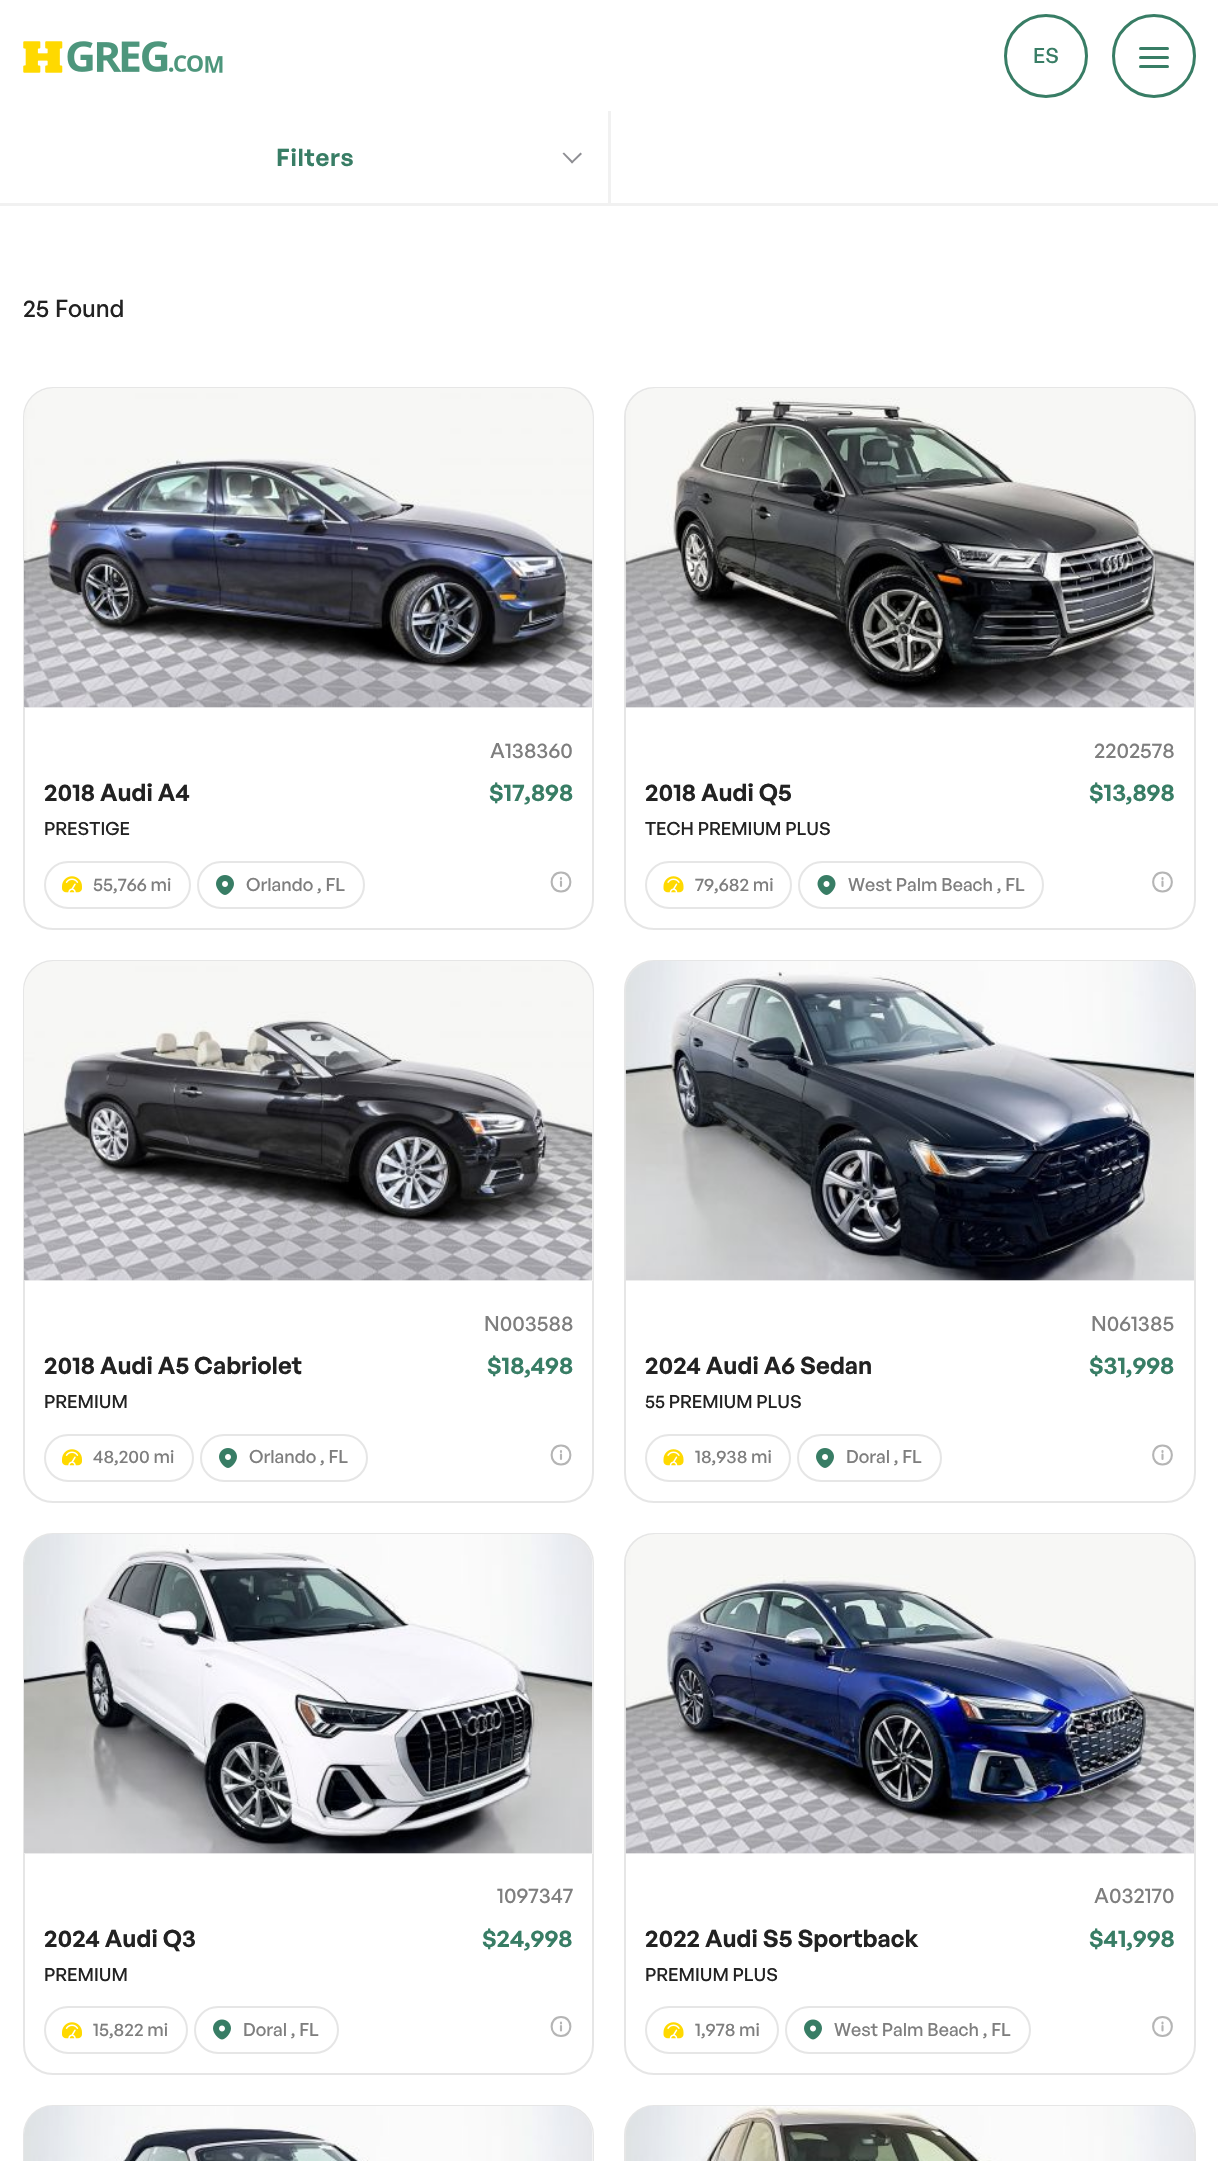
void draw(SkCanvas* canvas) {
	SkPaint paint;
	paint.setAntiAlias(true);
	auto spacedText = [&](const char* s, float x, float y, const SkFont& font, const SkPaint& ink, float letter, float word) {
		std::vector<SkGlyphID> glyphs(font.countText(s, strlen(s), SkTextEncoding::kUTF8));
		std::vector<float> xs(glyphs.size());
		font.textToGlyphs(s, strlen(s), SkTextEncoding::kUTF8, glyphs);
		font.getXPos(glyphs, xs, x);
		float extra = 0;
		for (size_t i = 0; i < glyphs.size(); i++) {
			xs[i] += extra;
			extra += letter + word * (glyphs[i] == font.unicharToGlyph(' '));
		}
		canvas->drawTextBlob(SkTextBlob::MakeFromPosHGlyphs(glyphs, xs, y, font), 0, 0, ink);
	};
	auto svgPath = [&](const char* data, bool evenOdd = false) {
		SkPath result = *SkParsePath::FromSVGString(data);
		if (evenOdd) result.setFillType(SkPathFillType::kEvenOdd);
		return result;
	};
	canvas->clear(0xffffffff);
	canvas->drawImageRect(SkImages::DeferredFromEncodedData(SkData::MakeFromFileName("img1.png")), SkRect::MakeXYWH(23, 41, 200, 32), SkSamplingOptions());
	paint.setStroke(true);
	paint.setStrokeWidth(3);
	paint.setColor(0xff387d65);
	canvas->drawCircle(1046, 56, 40.5, paint);
	SkFont f1(fontMgr->matchFamilyStyle("General Sans", SkFontStyle(500, SkFontStyle::kNormal_Width, SkFontStyle::kUpright_Slant)), 21);
	f1.setSubpixel(true);
	paint.setStroke(false);
	canvas->drawString("ES", 1033, 63, f1, paint);
	paint.setStroke(true);
	canvas->drawCircle(1154, 56, 40.5, paint);
	paint.setStroke(false);
	canvas->drawRoundRect(SkRect::MakeXYWH(1139, 47, 30, 3), 1.5, 1.5, paint);
	canvas->drawRoundRect(SkRect::MakeXYWH(1139, 56, 30, 3), 1.5, 1.5, paint);
	canvas->drawRoundRect(SkRect::MakeXYWH(1139, 65, 30, 3), 1.5, 1.5, paint);
	paint.setColor(0xfff1f1f1);
	canvas->drawRect(SkRect::MakeXYWH(0, 203, 1218, 3), paint);
	SkFont f2(fontMgr->matchFamilyStyle("General Sans", SkFontStyle(600, SkFontStyle::kNormal_Width, SkFontStyle::kUpright_Slant)), 24);
	f2.setSubpixel(true);
	paint.setColor(0xff387d65);
	spacedText("Filters", 276, 166, f2, paint, 0.75, 0);
	paint.setColor(0xff8e8e93);
	canvas->drawPath(svgPath("M580.5 152.5L582 154L572 163.5L571 162Z"), paint);
	canvas->drawPath(svgPath("M564 152.5L573.5 162L572 163.5L562.5 153.5Z"), paint);
	paint.setColor(0xfff1f1f1);
	canvas->drawRect(SkRect::MakeXYWH(608, 111, 3, 92), paint);
	SkFont f3(fontMgr->matchFamilyStyle("General Sans", SkFontStyle(500, SkFontStyle::kNormal_Width, SkFontStyle::kUpright_Slant)), 24);
	f3.setSubpixel(true);
	paint.setColor(0xff222222);
	canvas->drawString("25", 23, 317, f3, paint);
	canvas->drawString("Found", 55, 317, f3, paint);
	paint.setStroke(true);
	paint.setStrokeWidth(2);
	paint.setColor(0xffe6e6e6);
	canvas->drawRoundRect(SkRect::MakeXYWH(24, 388, 569, 541), 29, 29, paint);
	paint.setStroke(false);
	paint.setColor(0xfff4f4f4);
	canvas->drawPath(svgPath("M54 389H563C579.5 389 593 402.5 593 419V708H24V419C24 402.5 37.5 389 54 389Z"), paint);
	canvas->drawImageRect(SkImages::DeferredFromEncodedData(SkData::MakeFromFileName("img2.png")), SkRect::MakeXYWH(24, 388, 569, 320), SkSamplingOptions());
	paint.setColor(0xff7e7e7e);
	canvas->drawString("A138360", 490, 758, f1, paint);
	paint.setColor(0xff222222);
	canvas->drawString("2018 Audi A4", 44, 801, f2, paint);
	paint.setColor(0xff387d65);
	canvas->drawString("$17,898", 489, 801, f2, paint);
	SkFont f4(fontMgr->matchFamilyStyle("General Sans", SkFontStyle(500, SkFontStyle::kNormal_Width, SkFontStyle::kUpright_Slant)), 18);
	f4.setSubpixel(true);
	paint.setColor(0xff222222);
	canvas->drawString("PRESTIGE", 44, 835, f4, paint);
	canvas->drawImageRect(SkImages::DeferredFromEncodedData(SkData::MakeFromFileName("img3.png")), SkRect::MakeXYWH(62, 876, 20, 17), SkSamplingOptions());
	paint.setStroke(true);
	paint.setColor(0xffe6e6e6);
	canvas->drawRoundRect(SkRect::MakeXYWH(45, 862, 145, 46), 23, 23, paint);
	paint.setStroke(false);
	paint.setColor(0xff7e7e7e);
	canvas->drawString("55,766 mi", 93, 891, f4, paint);
	canvas->drawImageRect(SkImages::DeferredFromEncodedData(SkData::MakeFromFileName("img4.png")), SkRect::MakeXYWH(216, 875, 18, 20), SkSamplingOptions());
	paint.setStroke(true);
	paint.setColor(0xffe6e6e6);
	canvas->drawRoundRect(SkRect::MakeXYWH(198, 862, 166, 46), 23, 23, paint);
	paint.setStroke(false);
	paint.setColor(0xff7e7e7e);
	canvas->drawString("Orlando , FL", 246, 891, f4, paint);
	paint.setStroke(true);
	paint.setStrokeWidth(2.1);
	paint.setStrokeCap(SkPaint::kRound_Cap);
	paint.setStrokeJoin(SkPaint::kRound_Join);
	paint.setColor(0xffb5b5b5);
	canvas->drawPath(svgPath("M561 878V879M561 881.5V886M561 891.5C573.5 891.5 573.5 872.5 561 872.5C548.5 872.5 548.5 891.5 561 891.5Z"), paint);
	paint.setStrokeWidth(2);
	paint.setStrokeCap(SkPaint::kButt_Cap);
	paint.setStrokeJoin(SkPaint::kMiter_Join);
	paint.setColor(0xffe6e6e6);
	canvas->drawRoundRect(SkRect::MakeXYWH(625, 388, 570, 541), 29, 29, paint);
	paint.setStroke(false);
	paint.setColor(0xfff4f4f4);
	canvas->drawPath(svgPath("M656 389H1164C1180.5 389 1194 402.5 1194 419V708H626V419C626 402.5 639.5 389 656 389Z"), paint);
	canvas->drawImageRect(SkImages::DeferredFromEncodedData(SkData::MakeFromFileName("img5.png")), SkRect::MakeXYWH(625, 388, 569, 320), SkSamplingOptions());
	paint.setColor(0xff7e7e7e);
	canvas->drawString("2202578", 1094, 758, f1, paint);
	paint.setColor(0xff222222);
	canvas->drawString("2018 Audi Q5", 645, 801, f2, paint);
	paint.setColor(0xff387d65);
	canvas->drawString("$13,898", 1089, 801, f2, paint);
	paint.setColor(0xff222222);
	canvas->drawString("TECH PREMIUM PLUS", 645, 835, f4, paint);
	canvas->drawImageRect(SkImages::DeferredFromEncodedData(SkData::MakeFromFileName("img6.png")), SkRect::MakeXYWH(663, 876, 21, 17), SkSamplingOptions());
	paint.setStroke(true);
	paint.setColor(0xffe6e6e6);
	canvas->drawRoundRect(SkRect::MakeXYWH(646, 862, 145, 46), 23, 23, paint);
	paint.setStroke(false);
	paint.setColor(0xff7e7e7e);
	canvas->drawString("79,682 mi", 695, 891, f4, paint);
	canvas->drawImageRect(SkImages::DeferredFromEncodedData(SkData::MakeFromFileName("img7.png")), SkRect::MakeXYWH(817, 875, 19, 20), SkSamplingOptions());
	paint.setStroke(true);
	paint.setColor(0xffe6e6e6);
	canvas->drawRoundRect(SkRect::MakeXYWH(799, 862, 244, 46), 23, 23, paint);
	paint.setStroke(false);
	paint.setColor(0xff7e7e7e);
	canvas->drawString("West Palm Beach , FL", 848, 891, f4, paint);
	paint.setStroke(true);
	paint.setStrokeWidth(2.1);
	paint.setStrokeCap(SkPaint::kRound_Cap);
	paint.setStrokeJoin(SkPaint::kRound_Join);
	paint.setColor(0xffb5b5b5);
	canvas->drawPath(svgPath("M1162.5 878V879M1162.5 881.5V886M1162.5 891.5C1175 891.5 1175 872.5 1162.5 872.5C1150 872.5 1150 891.5 1162.5 891.5Z"), paint);
	paint.setStrokeWidth(2);
	paint.setStrokeCap(SkPaint::kButt_Cap);
	paint.setStrokeJoin(SkPaint::kMiter_Join);
	paint.setColor(0xffe6e6e6);
	canvas->drawRoundRect(SkRect::MakeXYWH(24, 961, 569, 541), 29, 29, paint);
	paint.setStroke(false);
	paint.setColor(0xfff4f4f4);
	canvas->drawPath(svgPath("M54 962H563C579.5 962 593 975.5 593 992V1281H24V992C24 975.5 37.5 962 54 962Z"), paint);
	canvas->drawImageRect(SkImages::DeferredFromEncodedData(SkData::MakeFromFileName("img8.png")), SkRect::MakeXYWH(24, 961, 569, 320), SkSamplingOptions());
	paint.setColor(0xff7e7e7e);
	canvas->drawString("N003588", 484, 1331, f1, paint);
	paint.setColor(0xff222222);
	canvas->drawString("2018 Audi A5 Cabriolet", 44, 1374, f2, paint);
	paint.setColor(0xff387d65);
	canvas->drawString("$18,498", 487, 1374, f2, paint);
	paint.setColor(0xff222222);
	canvas->drawString("PREMIUM", 44, 1408, f4, paint);
	canvas->drawImageRect(SkImages::DeferredFromEncodedData(SkData::MakeFromFileName("img3.png")), SkRect::MakeXYWH(62, 1449, 20, 17), SkSamplingOptions());
	paint.setStroke(true);
	paint.setColor(0xffe6e6e6);
	canvas->drawRoundRect(SkRect::MakeXYWH(45, 1435, 148, 46), 23, 23, paint);
	paint.setStroke(false);
	paint.setColor(0xff7e7e7e);
	canvas->drawString("48,200 mi", 93, 1463, f4, paint);
	canvas->drawImageRect(SkImages::DeferredFromEncodedData(SkData::MakeFromFileName("img4.png")), SkRect::MakeXYWH(219, 1448, 18, 20), SkSamplingOptions());
	paint.setStroke(true);
	paint.setColor(0xffe6e6e6);
	canvas->drawRoundRect(SkRect::MakeXYWH(201, 1435, 166, 46), 23, 23, paint);
	paint.setStroke(false);
	paint.setColor(0xff7e7e7e);
	canvas->drawString("Orlando , FL", 249, 1463, f4, paint);
	paint.setStroke(true);
	paint.setStrokeWidth(2.1);
	paint.setStrokeCap(SkPaint::kRound_Cap);
	paint.setStrokeJoin(SkPaint::kRound_Join);
	paint.setColor(0xffb5b5b5);
	canvas->drawPath(svgPath("M561 1451V1452M561 1454.5V1459M561 1464.5C573.5 1464.5 573.5 1445.5 561 1445.5C548.5 1445.5 548.5 1464.5 561 1464.5Z"), paint);
	paint.setStrokeWidth(2);
	paint.setStrokeCap(SkPaint::kButt_Cap);
	paint.setStrokeJoin(SkPaint::kMiter_Join);
	paint.setColor(0xffe6e6e6);
	canvas->drawRoundRect(SkRect::MakeXYWH(625, 961, 570, 541), 29, 29, paint);
	paint.setStroke(false);
	paint.setColor(0xfff4f4f4);
	canvas->drawPath(svgPath("M656 962H1164C1180.5 962 1194 975.5 1194 992V1281H626V992C626 975.5 639.5 962 656 962Z"), paint);
	canvas->drawImageRect(SkImages::DeferredFromEncodedData(SkData::MakeFromFileName("img9.png")), SkRect::MakeXYWH(625, 961, 569, 320), SkSamplingOptions());
	paint.setColor(0xff7e7e7e);
	canvas->drawString("N061385", 1091, 1331, f1, paint);
	paint.setColor(0xff222222);
	canvas->drawString("2024 Audi A6 Sedan", 645, 1374, f2, paint);
	paint.setColor(0xff387d65);
	canvas->drawString("$31,998", 1089, 1374, f2, paint);
	paint.setColor(0xff222222);
	canvas->drawString("55 PREMIUM PLUS", 645, 1408, f4, paint);
	canvas->drawImageRect(SkImages::DeferredFromEncodedData(SkData::MakeFromFileName("img6.png")), SkRect::MakeXYWH(663, 1449, 21, 17), SkSamplingOptions());
	paint.setStroke(true);
	paint.setColor(0xffe6e6e6);
	canvas->drawRoundRect(SkRect::MakeXYWH(646, 1435, 144, 46), 23, 23, paint);
	paint.setStroke(false);
	paint.setColor(0xff7e7e7e);
	canvas->drawString("18,938 mi", 695, 1463, f4, paint);
	canvas->drawImageRect(SkImages::DeferredFromEncodedData(SkData::MakeFromFileName("img4.png")), SkRect::MakeXYWH(816, 1448, 18, 20), SkSamplingOptions());
	paint.setStroke(true);
	paint.setColor(0xffe6e6e6);
	canvas->drawRoundRect(SkRect::MakeXYWH(798, 1435, 143, 46), 23, 23, paint);
	paint.setStroke(false);
	paint.setColor(0xff7e7e7e);
	canvas->drawString("Doral , FL", 846, 1463, f4, paint);
	paint.setStroke(true);
	paint.setStrokeWidth(2.1);
	paint.setStrokeCap(SkPaint::kRound_Cap);
	paint.setStrokeJoin(SkPaint::kRound_Join);
	paint.setColor(0xffb5b5b5);
	canvas->drawPath(svgPath("M1162.5 1451V1452M1162.5 1454.5V1459M1162.5 1464.5C1175 1464.5 1175 1445.5 1162.5 1445.5C1150 1445.5 1150 1464.5 1162.5 1464.5Z"), paint);
	paint.setStrokeWidth(2);
	paint.setStrokeCap(SkPaint::kButt_Cap);
	paint.setStrokeJoin(SkPaint::kMiter_Join);
	paint.setColor(0xffe6e6e6);
	canvas->drawRoundRect(SkRect::MakeXYWH(24, 1534, 569, 540), 29, 29, paint);
	paint.setStroke(false);
	paint.setColor(0xfff4f4f4);
	canvas->drawPath(svgPath("M54 1535H563C579.5 1535 593 1548.5 593 1565V1854H24V1565C24 1548.5 37.5 1535 54 1535Z"), paint);
	canvas->drawImageRect(SkImages::DeferredFromEncodedData(SkData::MakeFromFileName("img10.png")), SkRect::MakeXYWH(24, 1534, 569, 320), SkSamplingOptions());
	paint.setColor(0xff7e7e7e);
	canvas->drawString("1097347", 497, 1903, f1, paint);
	paint.setColor(0xff222222);
	canvas->drawString("2024 Audi Q3", 44, 1947, f2, paint);
	paint.setColor(0xff387d65);
	canvas->drawString("$24,998", 482, 1947, f2, paint);
	paint.setColor(0xff222222);
	canvas->drawString("PREMIUM", 44, 1981, f4, paint);
	canvas->drawImageRect(SkImages::DeferredFromEncodedData(SkData::MakeFromFileName("img3.png")), SkRect::MakeXYWH(62, 2022, 20, 17), SkSamplingOptions());
	paint.setStroke(true);
	paint.setColor(0xffe6e6e6);
	canvas->drawRoundRect(SkRect::MakeXYWH(45, 2007, 142, 46), 23, 23, paint);
	paint.setStroke(false);
	paint.setColor(0xff7e7e7e);
	canvas->drawString("15,822 mi", 93, 2036, f4, paint);
	canvas->drawImageRect(SkImages::DeferredFromEncodedData(SkData::MakeFromFileName("img11.png")), SkRect::MakeXYWH(213, 2019, 18, 21), SkSamplingOptions());
	paint.setStroke(true);
	paint.setColor(0xffe6e6e6);
	canvas->drawRoundRect(SkRect::MakeXYWH(195, 2007, 143, 46), 23, 23, paint);
	paint.setStroke(false);
	paint.setColor(0xff7e7e7e);
	canvas->drawString("Doral , FL", 243, 2036, f4, paint);
	paint.setStroke(true);
	paint.setStrokeWidth(2.1);
	paint.setStrokeCap(SkPaint::kRound_Cap);
	paint.setStrokeJoin(SkPaint::kRound_Join);
	paint.setColor(0xffb5b5b5);
	canvas->drawPath(svgPath("M561 2022.5V2023.5M561 2026V2030.5M561 2036C573.5 2036 573.5 2017 561 2017C548.5 2017 548.5 2036 561 2036Z"), paint);
	paint.setStrokeWidth(2);
	paint.setStrokeCap(SkPaint::kButt_Cap);
	paint.setStrokeJoin(SkPaint::kMiter_Join);
	paint.setColor(0xffe6e6e6);
	canvas->drawRoundRect(SkRect::MakeXYWH(625, 1534, 570, 540), 29, 29, paint);
	paint.setStroke(false);
	paint.setColor(0xfff4f4f4);
	canvas->drawPath(svgPath("M656 1535H1164C1180.5 1535 1194 1548.5 1194 1565V1854H626V1565C626 1548.5 639.5 1535 656 1535Z"), paint);
	canvas->drawImageRect(SkImages::DeferredFromEncodedData(SkData::MakeFromFileName("img12.png")), SkRect::MakeXYWH(625, 1534, 569, 320), SkSamplingOptions());
	paint.setColor(0xff7e7e7e);
	canvas->drawString("A032170", 1094, 1903, f1, paint);
	paint.setColor(0xff222222);
	canvas->drawString("2022 Audi S5 Sportback", 645, 1947, f2, paint);
	paint.setColor(0xff387d65);
	canvas->drawString("$41,998", 1089, 1947, f2, paint);
	paint.setColor(0xff222222);
	canvas->drawString("PREMIUM PLUS", 645, 1981, f4, paint);
	canvas->drawImageRect(SkImages::DeferredFromEncodedData(SkData::MakeFromFileName("img6.png")), SkRect::MakeXYWH(663, 2022, 21, 17), SkSamplingOptions());
	paint.setStroke(true);
	paint.setColor(0xffe6e6e6);
	canvas->drawRoundRect(SkRect::MakeXYWH(646, 2007, 132, 46), 23, 23, paint);
	paint.setStroke(false);
	paint.setColor(0xff7e7e7e);
	canvas->drawString("1,978 mi", 695, 2036, f4, paint);
	canvas->drawImageRect(SkImages::DeferredFromEncodedData(SkData::MakeFromFileName("img11.png")), SkRect::MakeXYWH(804, 2019, 18, 21), SkSamplingOptions());
	paint.setStroke(true);
	paint.setColor(0xffe6e6e6);
	canvas->drawRoundRect(SkRect::MakeXYWH(786, 2007, 244, 46), 23, 23, paint);
	paint.setStroke(false);
	paint.setColor(0xff7e7e7e);
	canvas->drawString("West Palm Beach , FL", 834, 2036, f4, paint);
	paint.setStroke(true);
	paint.setStrokeWidth(2.1);
	paint.setStrokeCap(SkPaint::kRound_Cap);
	paint.setStrokeJoin(SkPaint::kRound_Join);
	paint.setColor(0xffb5b5b5);
	canvas->drawPath(svgPath("M1162.5 2022.5V2023.5M1162.5 2026V2030.5M1162.5 2036C1175 2036 1175 2017 1162.5 2017C1150 2017 1150 2036 1162.5 2036Z"), paint);
	paint.setStrokeWidth(2);
	paint.setStrokeCap(SkPaint::kButt_Cap);
	paint.setStrokeJoin(SkPaint::kMiter_Join);
	paint.setColor(0xffe6e6e6);
	canvas->drawRoundRect(SkRect::MakeXYWH(24, 2106, 569, 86), 29, 29, paint);
	paint.setStroke(false);
	paint.setColor(0xfff4f4f4);
	canvas->drawPath(svgPath("M54 2106H563C579.5 2106 593 2119.5 593 2136V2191H24V2136C24 2119.5 37.5 2106 54 2106Z"), paint);
	canvas->drawImageRect(SkImages::DeferredFromEncodedData(SkData::MakeFromFileName("img13.png")), SkRect::MakeXYWH(24, 2106, 568, 55), SkSamplingOptions());
	paint.setStroke(true);
	paint.setColor(0xffe6e6e6);
	canvas->drawRoundRect(SkRect::MakeXYWH(625, 2106, 570, 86), 29, 29, paint);
	paint.setStroke(false);
	paint.setColor(0xfff4f4f4);
	canvas->drawPath(svgPath("M656 2106H1164C1180.5 2106 1194 2119.5 1194 2136V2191H626V2136C626 2119.5 639.5 2106 656 2106Z"), paint);
	canvas->drawImageRect(SkImages::DeferredFromEncodedData(SkData::MakeFromFileName("img14.png")), SkRect::MakeXYWH(626, 2106, 568, 55), SkSamplingOptions());
}
